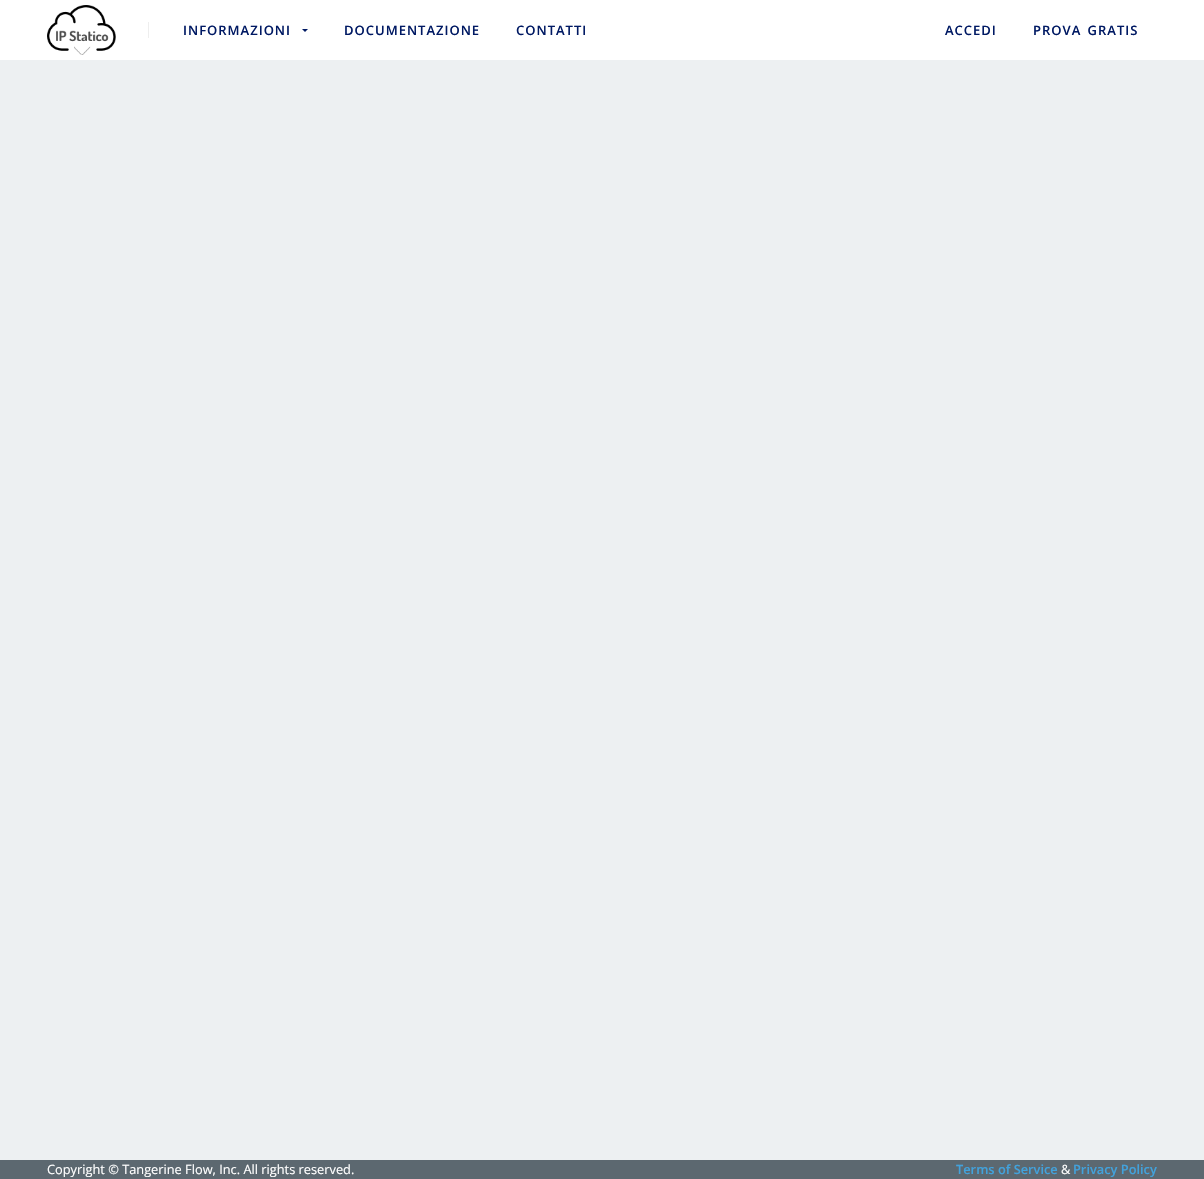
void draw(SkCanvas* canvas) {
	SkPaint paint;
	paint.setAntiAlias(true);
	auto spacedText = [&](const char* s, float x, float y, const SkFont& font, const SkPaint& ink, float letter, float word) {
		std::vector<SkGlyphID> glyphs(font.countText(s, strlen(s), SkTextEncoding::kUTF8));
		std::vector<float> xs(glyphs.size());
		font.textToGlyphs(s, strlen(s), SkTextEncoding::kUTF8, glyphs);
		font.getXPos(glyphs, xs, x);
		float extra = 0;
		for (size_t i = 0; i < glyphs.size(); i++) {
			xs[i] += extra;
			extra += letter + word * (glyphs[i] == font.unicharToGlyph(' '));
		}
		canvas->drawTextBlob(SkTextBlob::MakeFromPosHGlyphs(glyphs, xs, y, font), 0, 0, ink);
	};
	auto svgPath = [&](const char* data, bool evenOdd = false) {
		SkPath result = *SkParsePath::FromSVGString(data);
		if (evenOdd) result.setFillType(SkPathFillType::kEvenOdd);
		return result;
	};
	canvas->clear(0xffedf0f2);
	paint.setColor(0xffffffff);
	canvas->drawRect(SkRect::MakeXYWH(0, 0, 1204, 60), paint);
	canvas->drawImageRect(SkImages::DeferredFromEncodedData(SkData::MakeFromFileName("img1.png")), SkRect::MakeXYWH(47, 5, 69, 50), SkSamplingOptions());
	paint.setColor(0xffeeeeee);
	canvas->drawRect(SkRect::MakeXYWH(148, 22, 1, 16), paint);
	SkFont f1(fontMgr->matchFamilyStyle("Open Sans", SkFontStyle(600, SkFontStyle::kNormal_Width, SkFontStyle::kUpright_Slant)), 13);
	f1.setSubpixel(true);
	paint.setColor(0xff001963);
	spacedText("INFORMAZIONI", 183, 35, f1, paint, 1, 0);
	canvas->drawPath(svgPath("M302 29H308L305 32Z"), paint);
	spacedText("DOCUMENTAZIONE", 344, 35, f1, paint, 1, 0);
	spacedText("CONTATTI", 516, 35, f1, paint, 1, 0);
	spacedText("ACCEDI", 945, 35, f1, paint, 1, 0);
	spacedText("PROVA GRATIS", 1033, 35, f1, paint, 1, 2);
	paint.setColor(0xff5c6870);
	canvas->drawRect(SkRect::MakeXYWH(0, 1160, 1204, 19), paint);
	SkFont f2(fontMgr->matchFamilyStyle("Open Sans", SkFontStyle::Normal()), 12.8);
	f2.setSubpixel(true);
	paint.setColor(0xffffffff);
	canvas->drawString("Copyright © Tangerine Flow, Inc. All rights reserved.", 47, 1174, f2, paint);
	SkFont f3(fontMgr->matchFamilyStyle("Open Sans", SkFontStyle(600, SkFontStyle::kNormal_Width, SkFontStyle::kUpright_Slant)), 12.8);
	f3.setSubpixel(true);
	paint.setColor(0xff42a2dc);
	canvas->drawString("Terms of Service", 956, 1174, f3, paint);
	paint.setColor(0xffffffff);
	canvas->drawString("&", 1061, 1174, f2, paint);
	paint.setColor(0xff42a2dc);
	canvas->drawString("Privacy Policy", 1073, 1174, f3, paint);
}
